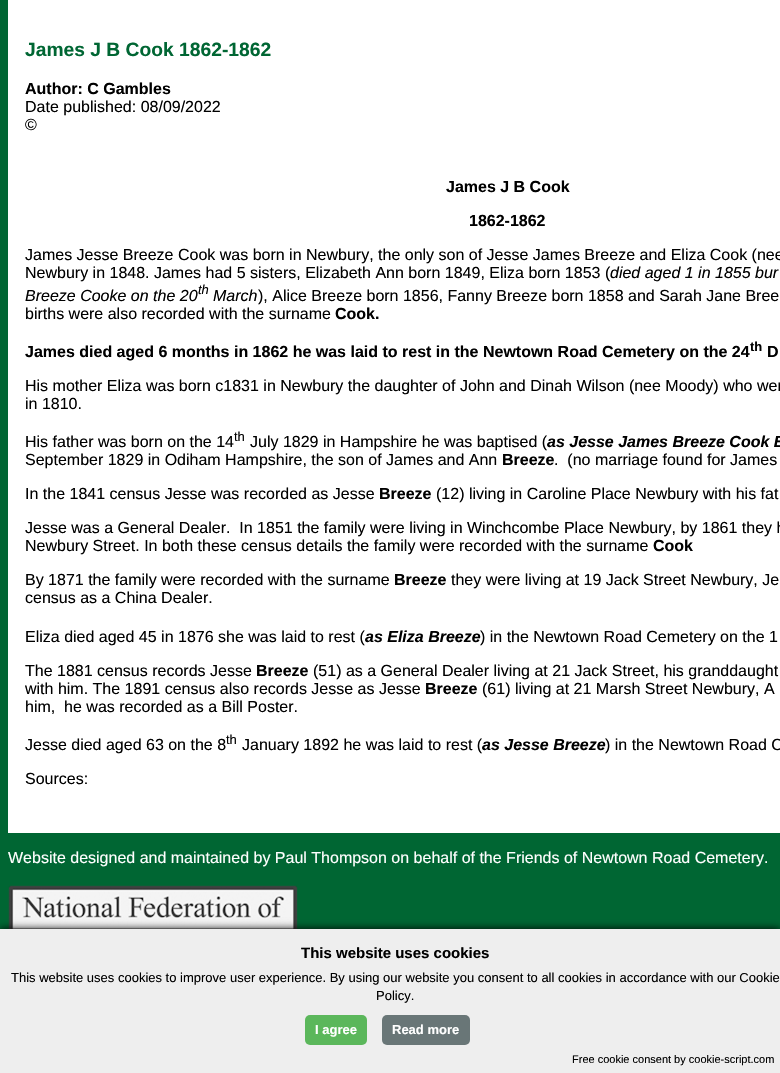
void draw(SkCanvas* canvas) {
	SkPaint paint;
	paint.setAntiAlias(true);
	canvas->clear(0xff006633);
	paint.setColor(0xffffffff);
	canvas->drawRect(SkRect::MakeXYWH(8, 0, 772, 833), paint);
	SkFont f1(fontMgr->matchFamilyStyle("Liberation Sans", SkFontStyle::Bold()), 19.25);
	f1.setSubpixel(true);
	paint.setColor(0xff006633);
	canvas->drawString("James J B Cook 1862-1862", 25, 56, f1, paint);
	SkFont f2(fontMgr->matchFamilyStyle("Liberation Sans", SkFontStyle::Bold()), 16);
	f2.setSubpixel(true);
	paint.setColor(0xff000000);
	canvas->drawString("Author: C Gambles", 25, 94, f2, paint);
	SkFont f3(fontMgr->matchFamilyStyle("Liberation Sans", SkFontStyle::Normal()), 16);
	f3.setSubpixel(true);
	canvas->drawString("Date published: 08/09/2022", 25, 112, f3, paint);
	canvas->drawString("©", 25, 130, f3, paint);
	canvas->drawString("James J B Cook", 446, 192, f2, paint);
	canvas->drawString("1862-1862", 469, 226, f2, paint);
	canvas->drawString("James Jesse Breeze Cook was born in Newbury, the only son of Jesse James Breeze and Eliza Cook (nee", 25, 260, f3, paint);
	canvas->drawString("Newbury in 1848. James had 5 sisters, Elizabeth Ann born 1849, Eliza born 1853 (", 25, 278, f3, paint);
	SkFont f4(fontMgr->matchFamilyStyle("Liberation Sans", SkFontStyle::Italic()), 16);
	f4.setSubpixel(true);
	canvas->drawString("died aged 1 in 1855 bur", 610, 278, f4, paint);
	canvas->drawString("Breeze Cooke on the 20", 25, 301, f4, paint);
	SkFont f5(fontMgr->matchFamilyStyle("Liberation Sans", SkFontStyle::Italic()), 13);
	f5.setSubpixel(true);
	canvas->drawString("th", 198, 294, f5, paint);
	canvas->drawString("March", 213, 301, f4, paint);
	canvas->drawString("), Alice Breeze born 1856, Fanny Breeze born 1858 and Sarah Jane Bree", 258, 301, f3, paint);
	canvas->drawString("births were also recorded with the surname", 25, 319, f3, paint);
	canvas->drawString("Cook.", 335, 319, f2, paint);
	canvas->drawString("James died aged 6 months in 1862 he was laid to rest in the Newtown Road Cemetery on the 24", 25, 357, f2, paint);
	SkFont f6(fontMgr->matchFamilyStyle("Liberation Sans", SkFontStyle::Bold()), 13);
	f6.setSubpixel(true);
	canvas->drawString("th", 750, 351, f6, paint);
	canvas->drawString("D", 767, 357, f2, paint);
	canvas->drawString("His mother Eliza was born c1831 in Newbury the daughter of John and Dinah Wilson (nee Moody) who wer", 25, 391, f3, paint);
	canvas->drawString("in 1810.", 25, 409, f3, paint);
	canvas->drawString("His father was born on the 14", 25, 447, f3, paint);
	SkFont f7(fontMgr->matchFamilyStyle("Liberation Sans", SkFontStyle::Normal()), 13);
	f7.setSubpixel(true);
	canvas->drawString("th", 234, 441, f7, paint);
	canvas->drawString("July 1829 in Hampshire he was baptised (", 250, 447, f3, paint);
	SkFont f8(fontMgr->matchFamilyStyle("Liberation Sans", SkFontStyle::BoldItalic()), 16);
	f8.setSubpixel(true);
	canvas->drawString("as Jesse James Breeze Cook B", 547, 447, f8, paint);
	canvas->drawString("September 1829 in Odiham Hampshire, the son of James and Ann", 25, 465, f3, paint);
	canvas->drawString("Breeze", 502, 465, f2, paint);
	canvas->drawString(".  (no marriage found for James", 554, 465, f3, paint);
	canvas->drawString("In the 1841 census Jesse was recorded as Jesse", 25, 499, f3, paint);
	canvas->drawString("Breeze", 379, 499, f2, paint);
	canvas->drawString("(12) living in Caroline Place Newbury with his fat", 436, 499, f3, paint);
	canvas->drawString("Jesse was a General Dealer.  In 1851 the family were living in Winchcombe Place Newbury, by 1861 they h", 25, 533, f3, paint);
	canvas->drawString("Newbury Street. In both these census details the family were recorded with the surname", 25, 551, f3, paint);
	canvas->drawString("Cook", 653, 551, f2, paint);
	canvas->drawString("By 1871 the family were recorded with the surname", 25, 585, f3, paint);
	canvas->drawString("Breeze", 394, 585, f2, paint);
	canvas->drawString("they were living at 19 Jack Street Newbury, Je", 451, 585, f3, paint);
	canvas->drawString("census as a China Dealer.", 25, 603, f3, paint);
	canvas->drawString("Eliza died aged 45 in 1876 she was laid to rest (", 25, 642, f3, paint);
	canvas->drawString("as Eliza Breeze", 365, 642, f8, paint);
	canvas->drawString(") in the Newtown Road Cemetery on the 1", 480, 642, f3, paint);
	canvas->drawString("The 1881 census records Jesse", 25, 676, f3, paint);
	canvas->drawString("Breeze", 256, 676, f2, paint);
	canvas->drawString("(51) as a General Dealer living at 21 Jack Street, his granddaught", 313, 676, f3, paint);
	canvas->drawString("with him. The 1891 census also records Jesse as Jesse", 25, 694, f3, paint);
	canvas->drawString("Breeze", 425, 694, f2, paint);
	canvas->drawString("(61) living at 21 Marsh Street Newbury, A", 482, 694, f3, paint);
	canvas->drawString("him,  he was recorded as a Bill Poster.", 25, 712, f3, paint);
	canvas->drawString("Jesse died aged 63 on the 8", 25, 750, f3, paint);
	canvas->drawString("th", 226, 744, f7, paint);
	canvas->drawString("January 1892 he was laid to rest (", 242, 750, f3, paint);
	canvas->drawString("as Jesse Breeze", 482, 750, f8, paint);
	canvas->drawString(") in the Newtown Road C", 605, 750, f3, paint);
	canvas->drawString("Sources:", 25, 784, f3, paint);
	paint.setColor(0xffffffff);
	canvas->drawString("Website designed and maintained by Paul Thompson on behalf of the Friends of Newtown Road Cemetery.", 8, 863, f3, paint);
	canvas->drawImageRect(SkImages::DeferredFromEncodedData(SkData::MakeFromFileName("img1.png")), SkRect::MakeXYWH(8, 885, 290, 44), SkSamplingOptions());
	paint.setColor(0xff000000);
	paint.setMaskFilter(SkMaskFilter::MakeBlur(kNormal_SkBlurStyle, 4));
	canvas->drawRect(SkRect::MakeXYWH(0, 929, 780, 144), paint);
	paint.setMaskFilter(nullptr);
	paint.setColor(0xffeeeeee);
	canvas->drawRect(SkRect::MakeXYWH(0, 929, 780, 144), paint);
	SkFont f9(fontMgr->matchFamilyStyle("Liberation Sans", SkFontStyle::Bold()), 15);
	f9.setSubpixel(true);
	paint.setColor(0xff000000);
	canvas->drawString("This website uses cookies", 301, 958, f9, paint);
	canvas->drawString("This website uses cookies to improve user experience. By using our website you consent to all cookies in accordance with our Cookie", 11, 982, f7, paint);
	canvas->drawString("Policy.", 376, 1000, f7, paint);
	paint.setColor(0xff5bb75b);
	canvas->drawRoundRect(SkRect::MakeXYWH(305, 1015, 62, 30), 5, 5, paint);
	paint.setColor(0xffffffff);
	canvas->drawString("I agree", 315, 1034, f6, paint);
	paint.setColor(0xff697677);
	canvas->drawRoundRect(SkRect::MakeXYWH(382, 1015, 88, 30), 5, 5, paint);
	paint.setColor(0xffffffff);
	canvas->drawString("Read more", 392, 1034, f6, paint);
	SkFont f10(fontMgr->matchFamilyStyle("Liberation Sans", SkFontStyle::Normal()), 11);
	f10.setSubpixel(true);
	paint.setColor(0xff000000);
	canvas->drawString("Free cookie consent by cookie-script.com", 572, 1063, f10, paint);
}
